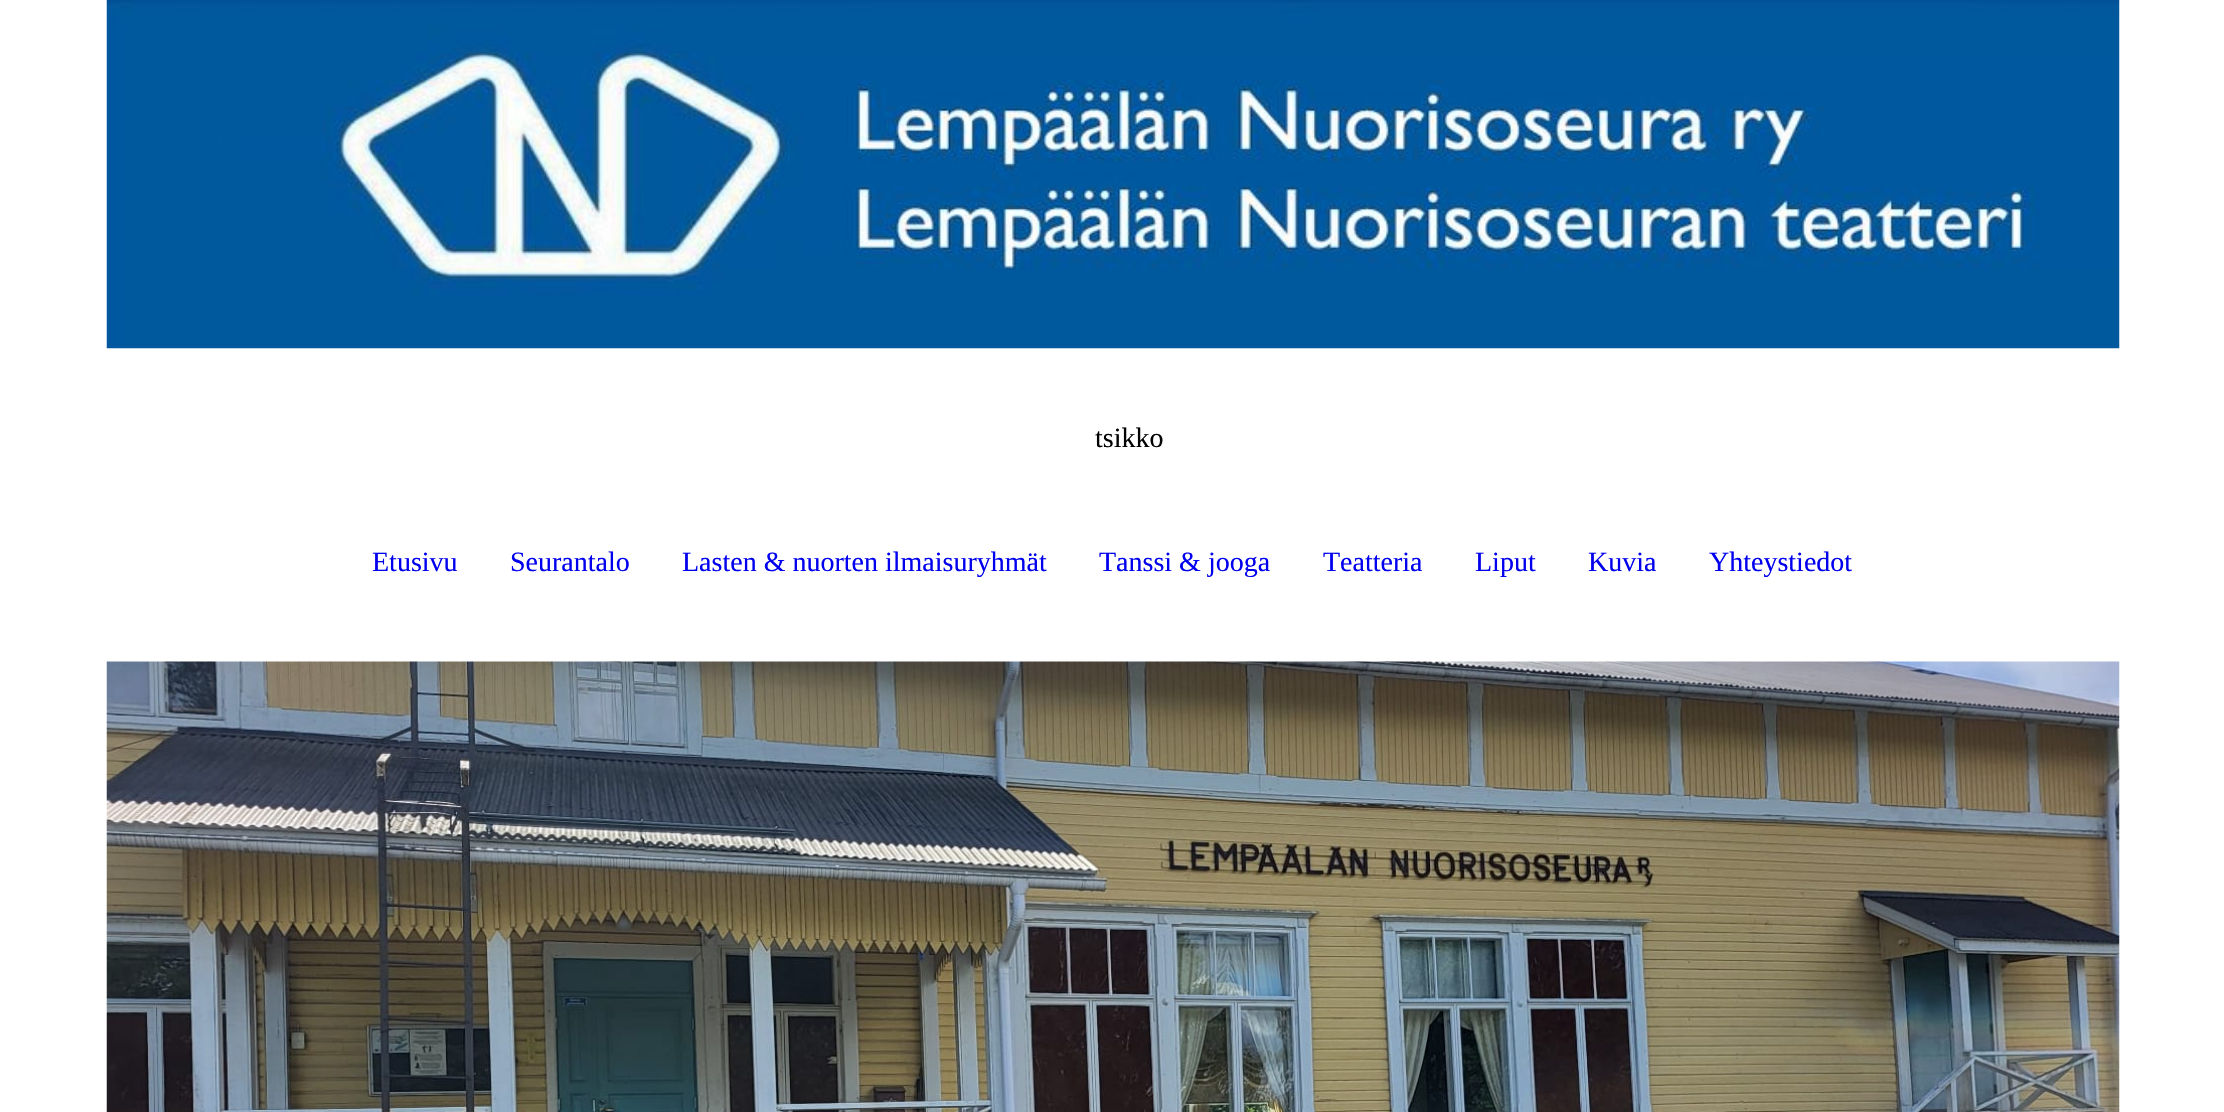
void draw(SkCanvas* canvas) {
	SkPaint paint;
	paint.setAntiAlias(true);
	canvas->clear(0xffffffff);
	canvas->drawImageRect(SkImages::DeferredFromEncodedData(SkData::MakeFromFileName("img1.png")), SkRect::MakeXYWH(106, 0, 2014, 349), SkSamplingOptions());
	SkFont f1(fontMgr->matchFamilyStyle("Liberation Serif", SkFontStyle::Normal()), 28);
	f1.setSubpixel(true);
	paint.setColor(0xff000000);
	canvas->drawString("tsikko", 1095, 447, f1, paint);
	paint.setColor(0xff0000ee);
	canvas->drawString("Etusivu", 372, 571, f1, paint);
	canvas->drawString("Seurantalo", 510, 571, f1, paint);
	canvas->drawString("Lasten & nuorten ilmaisuryhmät", 682, 571, f1, paint);
	canvas->drawString("Tanssi & jooga", 1099, 571, f1, paint);
	canvas->drawString("Teatteria", 1323, 571, f1, paint);
	canvas->drawString("Liput", 1475, 571, f1, paint);
	canvas->drawString("Kuvia", 1588, 571, f1, paint);
	canvas->drawString("Yhteystiedot", 1709, 571, f1, paint);
	canvas->drawImageRect(SkImages::DeferredFromEncodedData(SkData::MakeFromFileName("img2.png")), SkRect::MakeXYWH(106, 661, 2014, 451), SkSamplingOptions());
}
